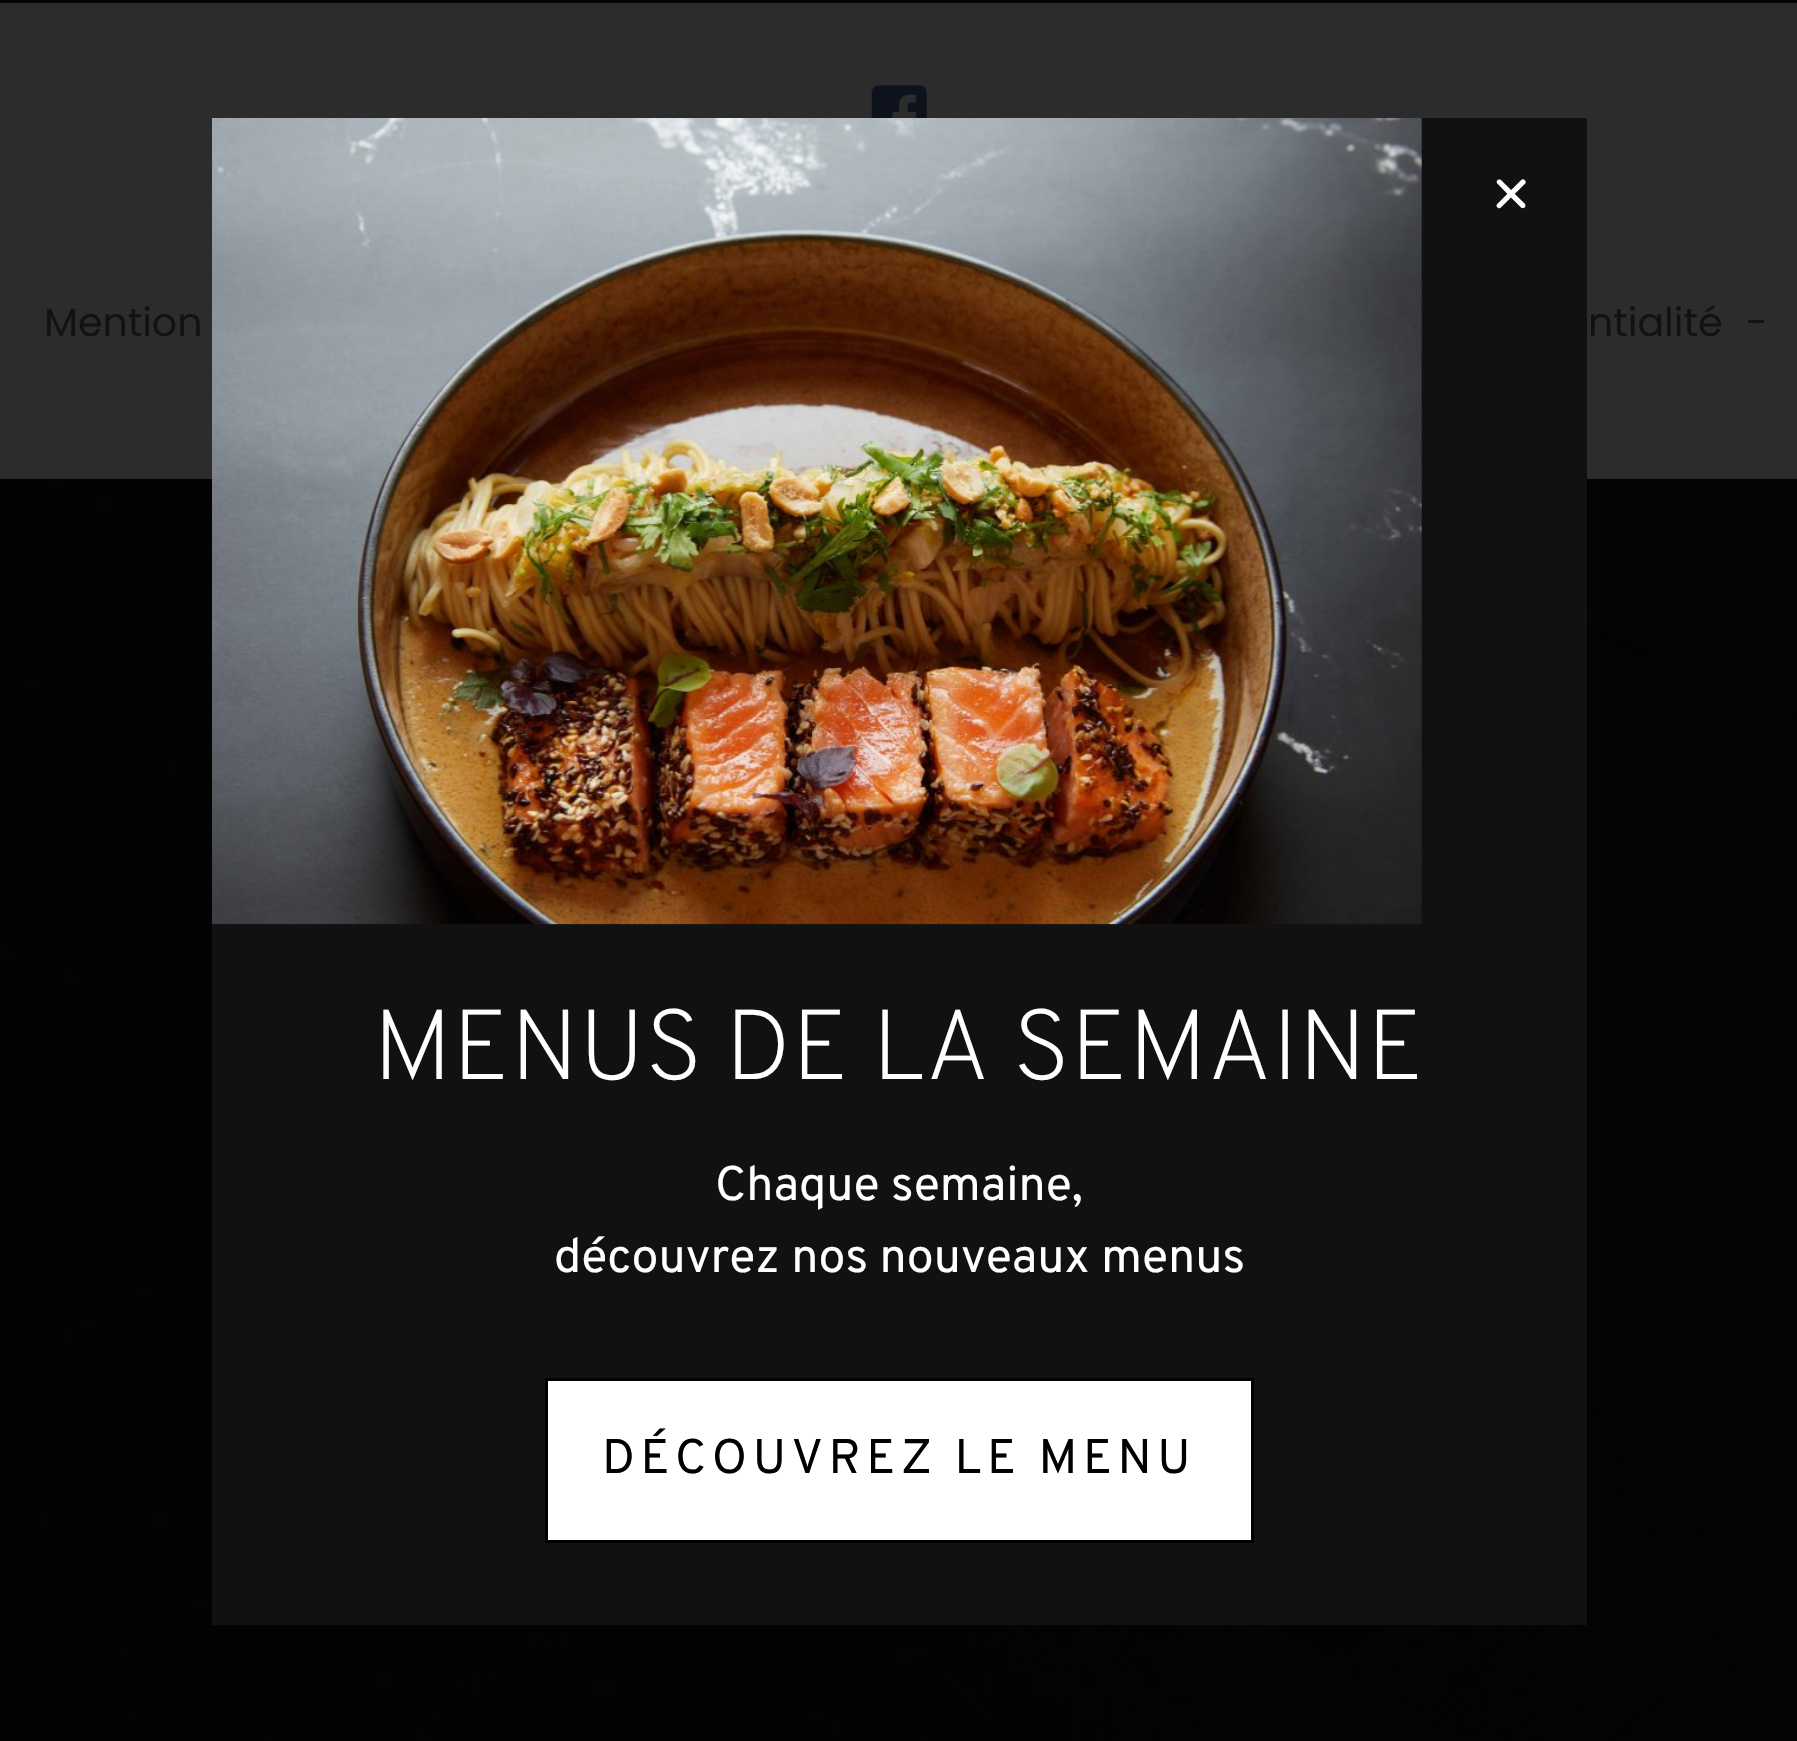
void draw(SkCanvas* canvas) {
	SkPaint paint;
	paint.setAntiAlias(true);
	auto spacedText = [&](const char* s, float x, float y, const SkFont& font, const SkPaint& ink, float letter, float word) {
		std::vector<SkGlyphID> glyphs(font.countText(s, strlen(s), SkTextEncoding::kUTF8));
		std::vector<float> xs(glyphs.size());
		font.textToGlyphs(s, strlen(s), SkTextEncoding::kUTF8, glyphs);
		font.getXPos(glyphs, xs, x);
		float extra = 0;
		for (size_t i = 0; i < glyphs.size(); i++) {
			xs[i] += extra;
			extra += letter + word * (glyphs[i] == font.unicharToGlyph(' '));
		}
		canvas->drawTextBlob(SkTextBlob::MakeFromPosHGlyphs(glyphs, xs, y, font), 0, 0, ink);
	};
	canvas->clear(0xffffffff);
	canvas->drawImageRect(SkImages::DeferredFromEncodedData(SkData::MakeFromFileName("img1.png")), SkRect::MakeXYWH(0, 479, 1797, 1262), SkSamplingOptions());
	paint.setColor(0xff030303);
	canvas->drawRect(SkRect::MakeXYWH(0, 0, 1797, 3), paint);
	paint.setColor(0xff2c2c2c);
	canvas->drawRect(SkRect::MakeXYWH(0, 3, 1797, 476), paint);
	canvas->drawImageRect(SkImages::DeferredFromEncodedData(SkData::MakeFromFileName("img2.png")), SkRect::MakeXYWH(871, 85, 56, 33), SkSamplingOptions());
	SkFont f1(fontMgr->matchFamilyStyle("Poppins", SkFontStyle::Normal()), 39.5);
	f1.setSubpixel(true);
	paint.setColor(0xff111213);
	canvas->drawString("Mention", 44, 336, f1, paint);
	canvas->drawString("ntialité", 1588, 336, f1, paint);
	canvas->drawString("-", 1746, 336, f1, paint);
	paint.setColor(0xff111111);
	canvas->drawRect(SkRect::MakeXYWH(212, 118, 1375, 1507), paint);
	canvas->drawImageRect(SkImages::DeferredFromEncodedData(SkData::MakeFromFileName("img3.png")), SkRect::MakeXYWH(1496, 179, 30, 30), SkSamplingOptions());
	canvas->drawImageRect(SkImages::DeferredFromEncodedData(SkData::MakeFromFileName("img4.png")), SkRect::MakeXYWH(212, 118, 1210, 807), SkSamplingOptions());
	SkFont f2(fontMgr->matchFamilyStyle("Overpass", SkFontStyle(200, SkFontStyle::kNormal_Width, SkFontStyle::kUpright_Slant)), 99);
	f2.setSubpixel(true);
	paint.setColor(0xffffffff);
	canvas->drawString("MENUS DE LA SEMAINE", 373, 1079, f2, paint);
	SkFont f3(fontMgr->matchFamilyStyle("Overpass", SkFontStyle::Normal()), 48.4);
	f3.setSubpixel(true);
	canvas->drawString("Chaque semaine,", 715, 1200, f3, paint);
	canvas->drawString("découvrez nos nouveaux menus", 554, 1272, f3, paint);
	canvas->drawRect(SkRect::MakeXYWH(546.5, 1379.5, 706, 162), paint);
	paint.setStroke(true);
	paint.setStrokeWidth(3);
	paint.setColor(0xff000000);
	canvas->drawRect(SkRect::MakeXYWH(546.5, 1379.5, 706, 162), paint);
	paint.setStroke(false);
	spacedText("DÉCOUVREZ LE MENU", 602, 1473, f3, paint, 5.5, 0);
}
